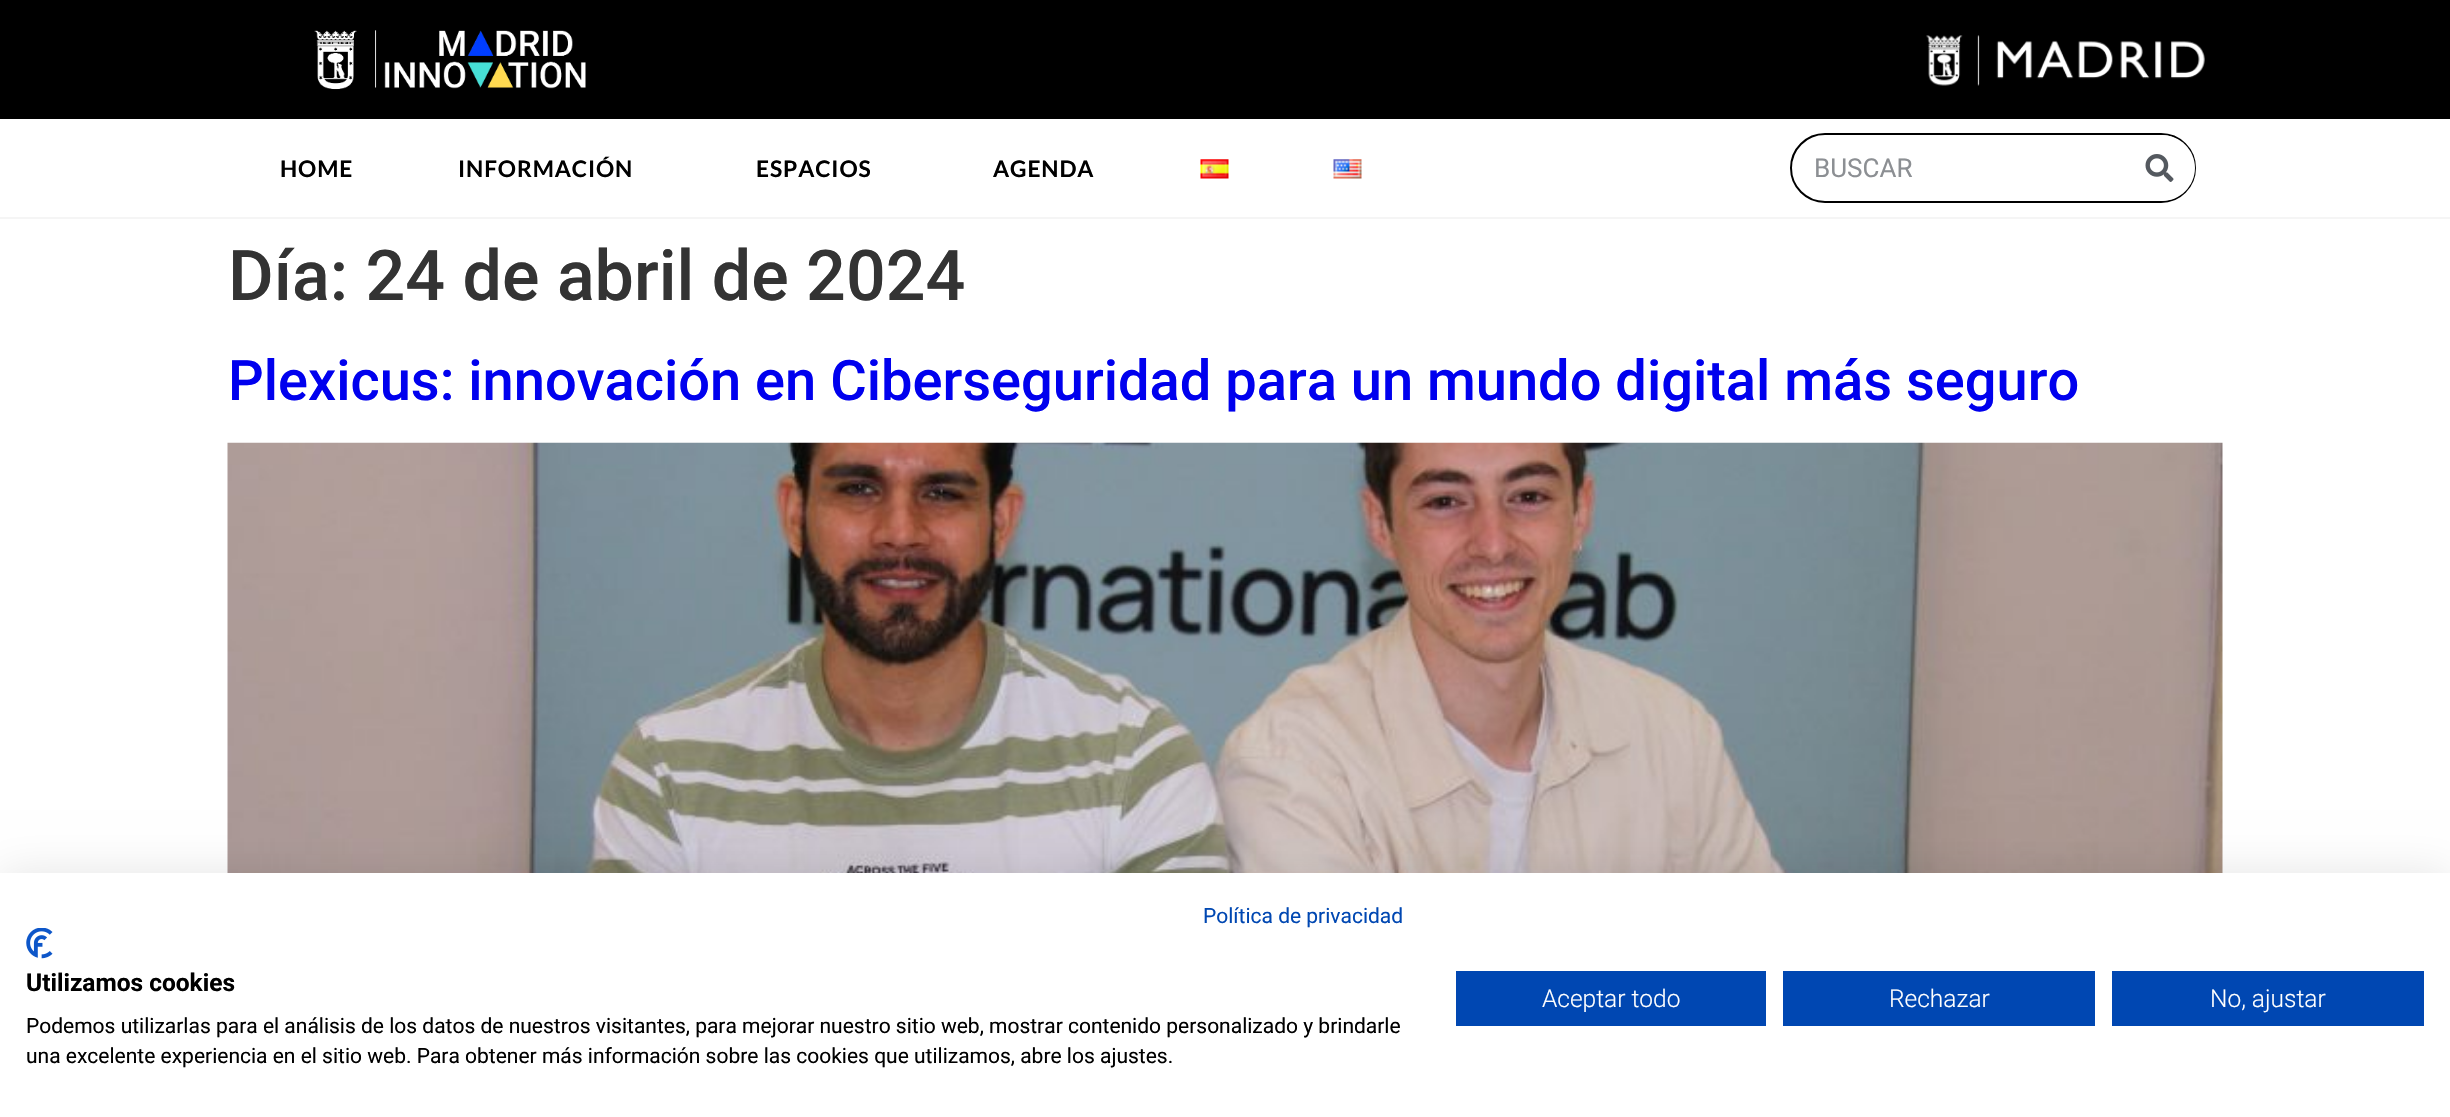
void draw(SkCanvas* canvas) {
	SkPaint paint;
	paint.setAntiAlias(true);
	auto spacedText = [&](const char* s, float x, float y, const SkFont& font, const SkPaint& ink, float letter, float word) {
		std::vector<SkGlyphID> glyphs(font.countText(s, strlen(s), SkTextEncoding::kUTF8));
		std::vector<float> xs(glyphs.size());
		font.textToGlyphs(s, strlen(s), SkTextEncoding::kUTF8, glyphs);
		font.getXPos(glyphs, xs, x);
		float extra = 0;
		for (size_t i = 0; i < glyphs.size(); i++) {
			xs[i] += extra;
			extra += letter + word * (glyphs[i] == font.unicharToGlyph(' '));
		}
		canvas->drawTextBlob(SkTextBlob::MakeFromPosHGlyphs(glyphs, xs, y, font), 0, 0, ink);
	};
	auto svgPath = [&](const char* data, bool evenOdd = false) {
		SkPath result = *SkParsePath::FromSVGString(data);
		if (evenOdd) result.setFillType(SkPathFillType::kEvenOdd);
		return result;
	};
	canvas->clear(0xffffffff);
	paint.setColor(0xff000000);
	canvas->drawRect(SkRect::MakeXYWH(0, 0, 2450, 119), paint);
	canvas->drawImageRect(SkImages::DeferredFromEncodedData(SkData::MakeFromFileName("img1.png")), SkRect::MakeXYWH(314, 30, 272, 60), SkSamplingOptions());
	canvas->drawImageRect(SkImages::DeferredFromEncodedData(SkData::MakeFromFileName("img2.png")), SkRect::MakeXYWH(1926, 35, 279, 51), SkSamplingOptions());
	paint.setColor(0xfff5f5f5);
	canvas->drawRect(SkRect::MakeXYWH(0, 217, 2450, 2), paint);
	SkFont f1(fontMgr->matchFamilyStyle("Lato", SkFontStyle::Bold()), 22.75);
	f1.setSubpixel(true);
	paint.setColor(0xff000000);
	spacedText("HOME", 280, 177, f1, paint, 0.9, 0);
	spacedText("INFORMACIÓN", 458, 177, f1, paint, 0.9, 0);
	spacedText("ESPACIOS", 756, 177, f1, paint, 0.9, 0);
	spacedText("AGENDA", 993, 177, f1, paint, 0.9, 0);
	canvas->drawImageRect(SkImages::DeferredFromEncodedData(SkData::MakeFromFileName("img3.png")), SkRect::MakeXYWH(1200, 159, 29, 20), SkSamplingOptions());
	canvas->drawImageRect(SkImages::DeferredFromEncodedData(SkData::MakeFromFileName("img4.png")), SkRect::MakeXYWH(1333, 159, 29, 20), SkSamplingOptions());
	paint.setStroke(true);
	paint.setStrokeWidth(2);
	canvas->drawRoundRect(SkRect::MakeXYWH(1791, 134, 404, 68), 34, 34, paint);
	SkFont f2(fontMgr->matchFamilyStyle("Roboto", SkFontStyle::Normal()), 26);
	f2.setSubpixel(true);
	paint.setStroke(false);
	paint.setColor(0xff8c8f93);
	canvas->drawString("BUSCAR", 1814, 177, f2, paint);
	paint.setColor(0xffffffff);
	canvas->drawPath(svgPath("M2125 135H2162C2180 135 2195 150 2195 168C2195 186 2180 201 2162 201H2125Z"), paint);
	canvas->drawImageRect(SkImages::DeferredFromEncodedData(SkData::MakeFromFileName("img5.png")), SkRect::MakeXYWH(2145, 154, 29, 28), SkSamplingOptions());
	SkFont f3(fontMgr->matchFamilyStyle("Roboto", SkFontStyle(500, SkFontStyle::kNormal_Width, SkFontStyle::kUpright_Slant)), 70);
	f3.setSubpixel(true);
	paint.setColor(0xff333333);
	canvas->drawString("Día: 24 de abril de 2024", 228, 300, f3, paint);
	SkFont f4(fontMgr->matchFamilyStyle("Roboto", SkFontStyle(500, SkFontStyle::kNormal_Width, SkFontStyle::kUpright_Slant)), 56);
	f4.setSubpixel(true);
	paint.setColor(0xff0000ee);
	canvas->drawString("Plexicus: innovación en Ciberseguridad para un mundo digital más seguro", 228, 400, f4, paint);
	canvas->drawImageRect(SkImages::DeferredFromEncodedData(SkData::MakeFromFileName("img6.png")), SkRect::MakeXYWH(227, 442, 1996, 431), SkSamplingOptions());
	paint.setColor(0x1a000000);
	paint.setMaskFilter(SkMaskFilter::MakeBlur(kNormal_SkBlurStyle, 21));
	canvas->drawRect(SkRect::MakeXYWH(0, 873, 2450, 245), paint);
	paint.setMaskFilter(nullptr);
	paint.setColor(0xffffffff);
	canvas->drawRect(SkRect::MakeXYWH(0, 873, 2450, 244), paint);
	SkFont f5(fontMgr->matchFamilyStyle("Roboto", SkFontStyle::Normal()), 21);
	f5.setSubpixel(true);
	paint.setColor(0xff0047b2);
	canvas->drawString("Política de privacidad", 1203, 923, f5, paint);
	canvas->drawImageRect(SkImages::DeferredFromEncodedData(SkData::MakeFromFileName("img7.png")), SkRect::MakeXYWH(26, 928, 27, 31), SkSamplingOptions());
	SkFont f6(fontMgr->matchFamilyStyle("Roboto", SkFontStyle::Bold()), 24.5);
	f6.setSubpixel(true);
	paint.setColor(0xff000000);
	canvas->drawString("Utilizamos cookies", 26, 991, f6, paint);
	canvas->drawString("Podemos utilizarlas para el análisis de los datos de nuestros visitantes, para mejorar nuestro sitio web, mostrar contenido personalizado y brindarle", 26, 1033, f5, paint);
	canvas->drawString("una excelente experiencia en el sitio web. Para obtener más información sobre las cookies que utilizamos, abre los ajustes.", 26, 1063, f5, paint);
	paint.setColor(0xff0047b2);
	canvas->drawRect(SkRect::MakeXYWH(1456, 971, 310, 55), paint);
	SkFont f7(fontMgr->matchFamilyStyle("Roboto", SkFontStyle(300, SkFontStyle::kNormal_Width, SkFontStyle::kUpright_Slant)), 24.5);
	f7.setSubpixel(true);
	paint.setColor(0xffffffff);
	canvas->drawString("Aceptar todo", 1542, 1007, f7, paint);
	paint.setColor(0xff0047b2);
	canvas->drawRect(SkRect::MakeXYWH(1783, 971, 312, 55), paint);
	paint.setColor(0xffffffff);
	canvas->drawString("Rechazar", 1889, 1007, f7, paint);
	paint.setColor(0xff0047b2);
	canvas->drawRect(SkRect::MakeXYWH(2112, 971, 312, 55), paint);
	paint.setColor(0xffffffff);
	canvas->drawString("No, ajustar", 2210, 1007, f7, paint);
}
